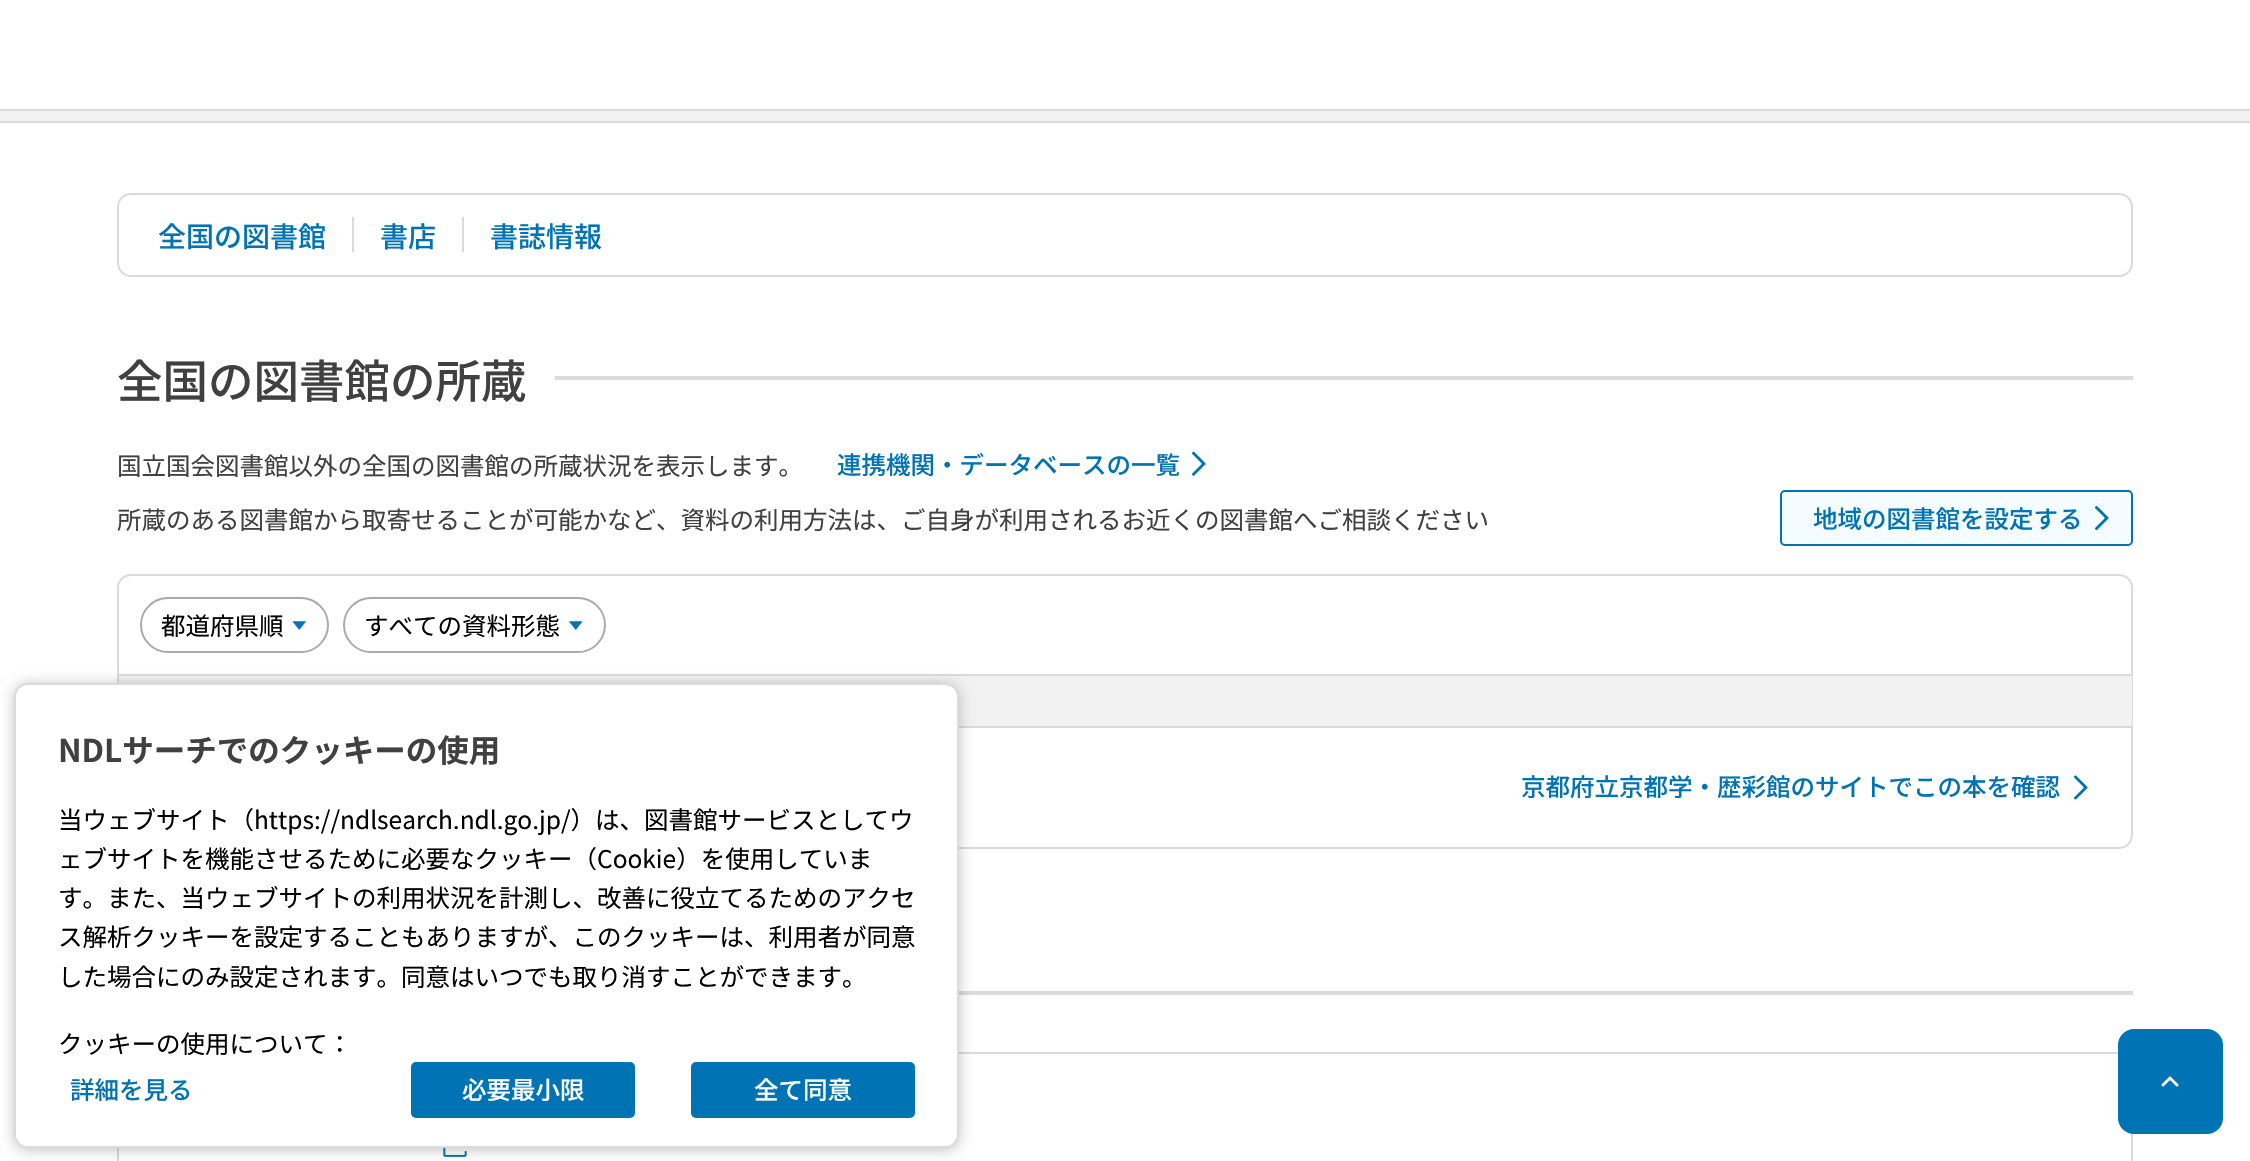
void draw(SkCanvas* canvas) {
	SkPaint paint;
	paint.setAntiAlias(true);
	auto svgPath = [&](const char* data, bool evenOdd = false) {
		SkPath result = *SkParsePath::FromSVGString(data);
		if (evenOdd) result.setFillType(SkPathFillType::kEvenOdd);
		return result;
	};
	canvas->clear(0xffffffff);
	paint.setColor(0xfff2f2f2);
	canvas->drawRect(SkRect::MakeXYWH(0, 111, 2250, 10), paint);
	paint.setColor(0xffdbdbdb);
	canvas->drawRect(SkRect::MakeXYWH(0, 109, 2250, 2), paint);
	canvas->drawRect(SkRect::MakeXYWH(0, 121, 2250, 2), paint);
	paint.setStroke(true);
	paint.setStrokeWidth(2);
	canvas->drawRoundRect(SkRect::MakeXYWH(118, 194, 2014, 82), 13, 13, paint);
	SkFont f1(fontMgr->matchFamilyStyle("Noto Sans JP", SkFontStyle(500, SkFontStyle::kNormal_Width, SkFontStyle::kUpright_Slant)), 28);
	f1.setSubpixel(true);
	paint.setStroke(false);
	paint.setColor(0xff0073b5);
	canvas->drawString("全国の図書館", 158, 247, f1, paint);
	paint.setColor(0xffdbdbdb);
	canvas->drawRect(SkRect::MakeXYWH(352, 217, 2, 35), paint);
	paint.setColor(0xff0073b5);
	canvas->drawString("書店", 380, 247, f1, paint);
	paint.setColor(0xffdbdbdb);
	canvas->drawRect(SkRect::MakeXYWH(462, 217, 2, 35), paint);
	paint.setColor(0xff0073b5);
	canvas->drawString("書誌情報", 490, 247, f1, paint);
	SkFont f2(fontMgr->matchFamilyStyle("Noto Sans JP", SkFontStyle(500, SkFontStyle::kNormal_Width, SkFontStyle::kUpright_Slant)), 45.5);
	f2.setSubpixel(true);
	paint.setColor(0xff404040);
	canvas->drawString("全国の図書館の所蔵", 117, 398, f2, paint);
	paint.setColor(0xffdbdbdb);
	canvas->drawRect(SkRect::MakeXYWH(555, 376, 1578, 4), paint);
	SkFont f3(fontMgr->matchFamilyStyle("Noto Sans JP", SkFontStyle::Normal()), 24.5);
	f3.setSubpixel(true);
	paint.setColor(0xff404040);
	canvas->drawString("国立国会図書館以外の全国の図書館の所蔵状況を表示します。", 117, 475, f3, paint);
	SkFont f4(fontMgr->matchFamilyStyle("Noto Sans JP", SkFontStyle(500, SkFontStyle::kNormal_Width, SkFontStyle::kUpright_Slant)), 24.5);
	f4.setSubpixel(true);
	paint.setColor(0xff0073b5);
	canvas->drawString("連携機関・データベースの一覧", 837, 474, f4, paint);
	canvas->drawImageRect(SkImages::DeferredFromEncodedData(SkData::MakeFromFileName("img1.png")), SkRect::MakeXYWH(1192, 451, 14, 25), SkSamplingOptions());
	paint.setColor(0xff404040);
	canvas->drawString("所蔵のある図書館から取寄せることが可能かなど、資料の利用方法は、ご自身が利用されるお近くの図書館へご相談ください", 117, 529, f3, paint);
	paint.setColor(0xfff5fcff);
	canvas->drawRoundRect(SkRect::MakeXYWH(1781, 491, 351, 54), 4, 4, paint);
	paint.setStroke(true);
	paint.setColor(0xff0073b5);
	canvas->drawRoundRect(SkRect::MakeXYWH(1781, 491, 351, 54), 4, 4, paint);
	paint.setStroke(false);
	canvas->drawString("地域の図書館を設定する", 1813, 528, f4, paint);
	canvas->drawImageRect(SkImages::DeferredFromEncodedData(SkData::MakeFromFileName("img2.png")), SkRect::MakeXYWH(2095, 506, 14, 24), SkSamplingOptions());
	paint.setStroke(true);
	paint.setColor(0xffdbdbdb);
	canvas->drawRoundRect(SkRect::MakeXYWH(118, 575, 2014, 273), 13, 13, paint);
	canvas->drawImageRect(SkImages::DeferredFromEncodedData(SkData::MakeFromFileName("img3.png")), SkRect::MakeXYWH(292, 621, 14, 9), SkSamplingOptions());
	paint.setColor(0xffaaaaaa);
	canvas->drawRoundRect(SkRect::MakeXYWH(141, 598, 187, 54), 27, 27, paint);
	paint.setStroke(false);
	paint.setColor(0xff000000);
	canvas->drawString("都道府県順", 161, 635, f3, paint);
	canvas->drawImageRect(SkImages::DeferredFromEncodedData(SkData::MakeFromFileName("img4.png")), SkRect::MakeXYWH(569, 621, 14, 9), SkSamplingOptions());
	paint.setStroke(true);
	paint.setColor(0xffaaaaaa);
	canvas->drawRoundRect(SkRect::MakeXYWH(344, 598, 261, 54), 27, 27, paint);
	paint.setStroke(false);
	paint.setColor(0xff000000);
	canvas->drawString("すべての資料形態", 364, 635, f3, paint);
	paint.setColor(0xfff2f2f2);
	canvas->drawRect(SkRect::MakeXYWH(119, 676, 2013, 50), paint);
	paint.setColor(0xffdbdbdb);
	canvas->drawRect(SkRect::MakeXYWH(119, 674, 2013, 2), paint);
	canvas->drawRect(SkRect::MakeXYWH(959, 726, 1173, 2), paint);
	paint.setColor(0xff0073b5);
	canvas->drawString("京都府立京都学・歴彩館のサイトでこの本を確認", 1521, 796, f4, paint);
	canvas->drawImageRect(SkImages::DeferredFromEncodedData(SkData::MakeFromFileName("img5.png")), SkRect::MakeXYWH(2074, 775, 14, 25), SkSamplingOptions());
	paint.setColor(0xffdbdbdb);
	canvas->drawRect(SkRect::MakeXYWH(959, 991, 1174, 4), paint);
	paint.setStroke(true);
	canvas->drawRect(SkRect::MakeXYWH(118, 1053, 2014, 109), paint);
	canvas->drawImageRect(SkImages::DeferredFromEncodedData(SkData::MakeFromFileName("img6.png")), SkRect::MakeXYWH(443, 1148, 24, 9), SkSamplingOptions());
	paint.setStroke(false);
	paint.setColor(0x3d000000);
	paint.setMaskFilter(SkMaskFilter::MakeBlur(kNormal_SkBlurStyle, 7));
	canvas->drawRoundRect(SkRect::MakeXYWH(14, 684, 945, 466), 14, 14, paint);
	paint.setMaskFilter(nullptr);
	paint.setColor(0xffffffff);
	canvas->drawRoundRect(SkRect::MakeXYWH(15, 684, 943, 463), 13, 13, paint);
	paint.setStroke(true);
	paint.setColor(0xffdbdbdb);
	canvas->drawRoundRect(SkRect::MakeXYWH(15, 684, 943, 463), 13, 13, paint);
	SkFont f5(fontMgr->matchFamilyStyle("Noto Sans JP", SkFontStyle::Bold()), 31.5);
	f5.setSubpixel(true);
	paint.setStroke(false);
	paint.setColor(0xff404040);
	canvas->drawString("NDLサーチでのクッキーの使用", 58, 762, f5, paint);
	paint.setColor(0xff000000);
	canvas->drawString("当ウェブサイト（https://ndlsearch.ndl.go.jp/）は、図書館サービスとしてウ", 58, 829, f3, paint);
	canvas->drawString("ェブサイトを機能させるために必要なクッキー（Cookie）を使用していま", 58, 868, f3, paint);
	canvas->drawString("す。また、当ウェブサイトの利用状況を計測し、改善に役立てるためのアクセ", 58, 907, f3, paint);
	canvas->drawString("ス解析クッキーを設定することもありますが、このクッキーは、利用者が同意", 58, 946, f3, paint);
	canvas->drawString("した場合にのみ設定されます。同意はいつでも取り消すことができます。", 58, 986, f3, paint);
	paint.setColor(0xffffffff);
	canvas->drawPath(svgPath("M16 996H957V1134C957 1140.5 951.5 1146 945 1146H28C21.5 1146 16 1140.5 16 1134Z"), paint);
	paint.setColor(0xff000000);
	canvas->drawString("クッキーの使用について：", 58, 1053, f3, paint);
	paint.setColor(0xff0073b5);
	canvas->drawString("詳細を見る", 70, 1099, f4, paint);
	canvas->drawRoundRect(SkRect::MakeXYWH(412, 1063, 222, 54), 4, 4, paint);
	paint.setStroke(true);
	canvas->drawRoundRect(SkRect::MakeXYWH(412, 1063, 222, 54), 4, 4, paint);
	paint.setStroke(false);
	paint.setColor(0xffffffff);
	canvas->drawString("必要最小限", 462, 1099, f4, paint);
	paint.setColor(0xff0073b5);
	canvas->drawRoundRect(SkRect::MakeXYWH(692, 1063, 222, 54), 4, 4, paint);
	paint.setStroke(true);
	canvas->drawRoundRect(SkRect::MakeXYWH(692, 1063, 222, 54), 4, 4, paint);
	paint.setStroke(false);
	paint.setColor(0xffffffff);
	canvas->drawString("全て同意", 754, 1099, f4, paint);
	paint.setColor(0xff0073b5);
	canvas->drawRoundRect(SkRect::MakeXYWH(2118, 1029, 105, 105), 16, 16, paint);
	canvas->drawImageRect(SkImages::DeferredFromEncodedData(SkData::MakeFromFileName("img7.png")), SkRect::MakeXYWH(2161, 1076, 18, 11), SkSamplingOptions());
}
